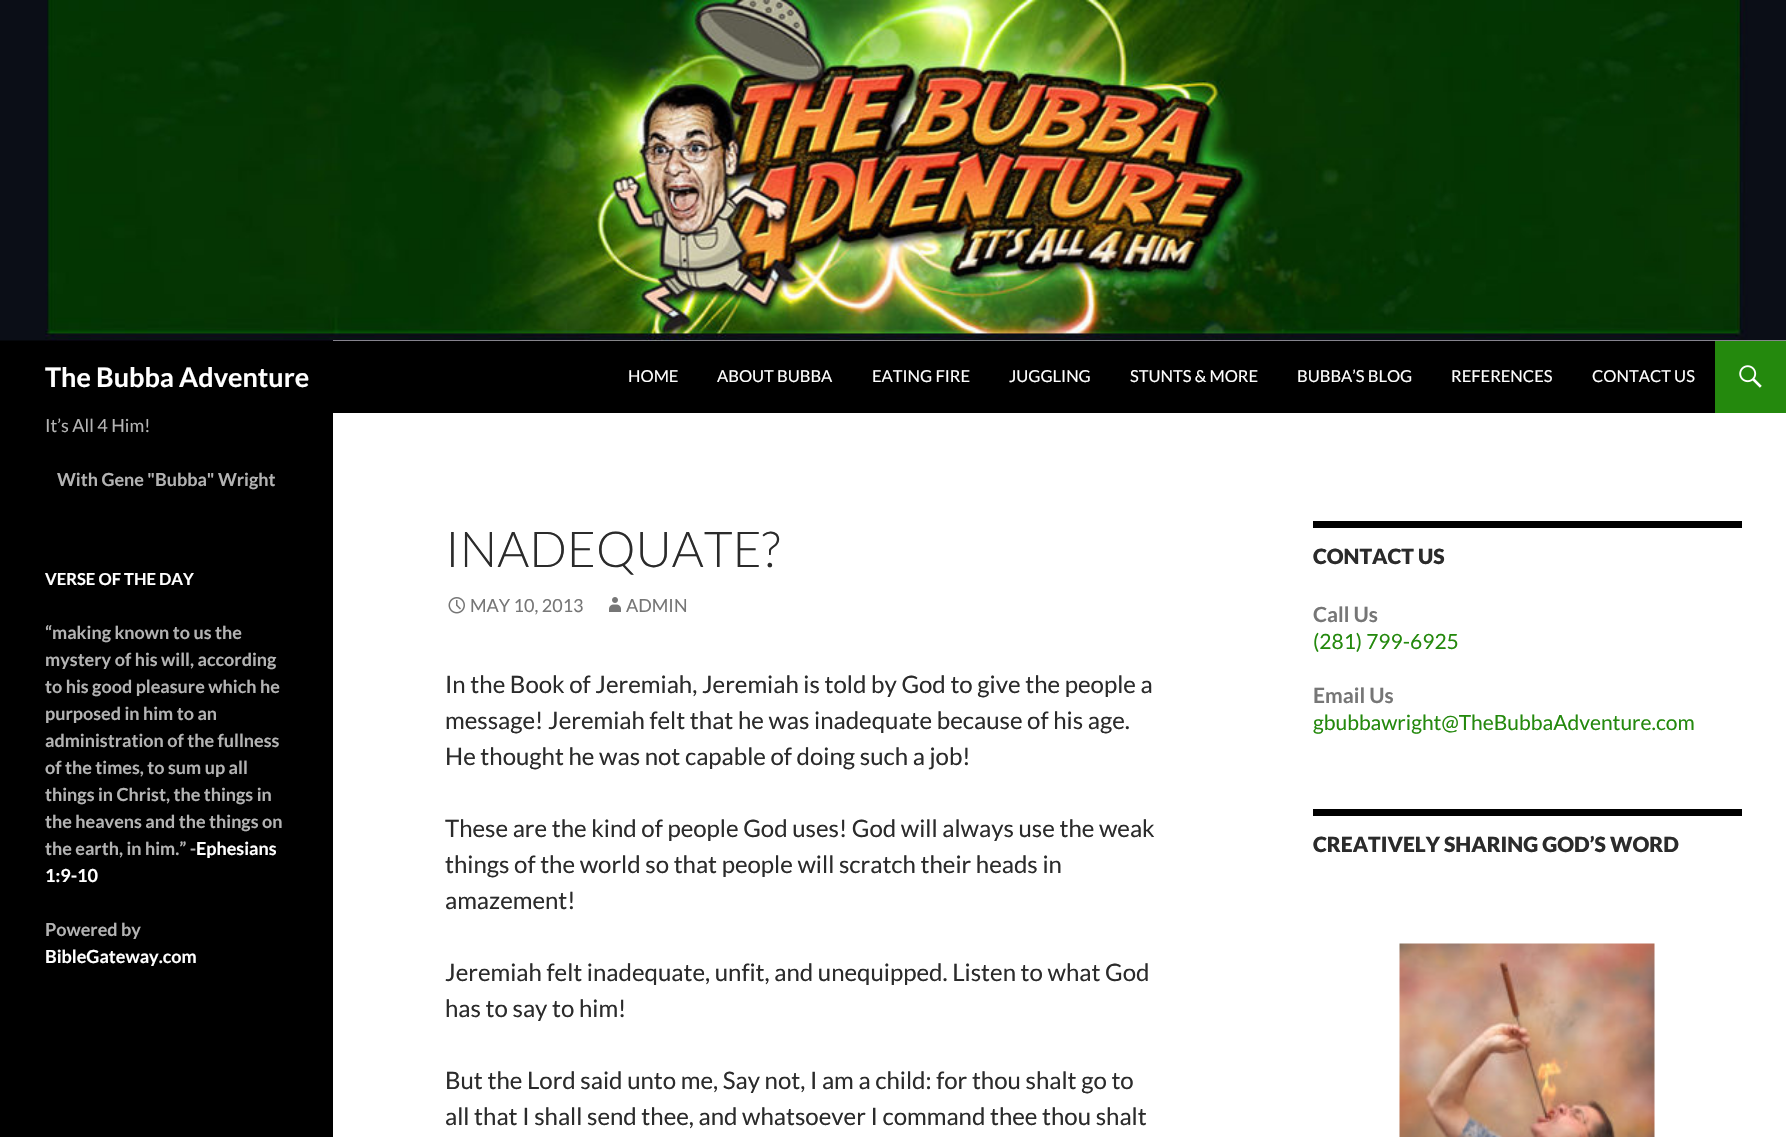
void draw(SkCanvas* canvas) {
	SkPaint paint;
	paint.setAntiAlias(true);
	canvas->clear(0xffffffff);
	paint.setColor(0xff000000);
	canvas->drawRect(SkRect::MakeXYWH(0, 340, 333, 797), paint);
	canvas->drawImageRect(SkImages::DeferredFromEncodedData(SkData::MakeFromFileName("img1.png")), SkRect::MakeXYWH(0, 0, 1786, 341), SkSamplingOptions());
	canvas->drawRect(SkRect::MakeXYWH(333, 341, 1382, 72), paint);
	SkFont f1(fontMgr->matchFamilyStyle("Lato", SkFontStyle::Bold()), 27);
	f1.setSubpixel(true);
	paint.setColor(0xffffffff);
	canvas->drawString("The Bubba Adventure", 45, 387, f1, paint);
	SkFont f2(fontMgr->matchFamilyStyle("Lato", SkFontStyle::Normal()), 16.5);
	f2.setSubpixel(true);
	canvas->drawString("HOME", 628, 382, f2, paint);
	canvas->drawString("ABOUT BUBBA", 717, 382, f2, paint);
	canvas->drawString("EATING FIRE", 872, 382, f2, paint);
	canvas->drawString("JUGGLING", 1009, 382, f2, paint);
	canvas->drawString("STUNTS & MORE", 1130, 382, f2, paint);
	canvas->drawString("BUBBA’S BLOG", 1297, 382, f2, paint);
	canvas->drawString("REFERENCES", 1451, 382, f2, paint);
	canvas->drawString("CONTACT US", 1592, 382, f2, paint);
	paint.setColor(0xff24890d);
	canvas->drawRect(SkRect::MakeXYWH(1715, 341, 71, 72), paint);
	canvas->drawImageRect(SkImages::DeferredFromEncodedData(SkData::MakeFromFileName("img2.png")), SkRect::MakeXYWH(1739, 365, 23, 23), SkSamplingOptions());
	SkFont f3(fontMgr->matchFamilyStyle("Lato", SkFontStyle::Normal()), 18);
	f3.setSubpixel(true);
	paint.setColor(0xffb3b3b3);
	canvas->drawString("It’s All 4 Him!", 45, 432, f3, paint);
	SkFont f4(fontMgr->matchFamilyStyle("Lato", SkFontStyle::Bold()), 18);
	f4.setSubpixel(true);
	canvas->drawString("With Gene \"Bubba\" Wright", 57, 486, f4, paint);
	SkFont f5(fontMgr->matchFamilyStyle("Lato", SkFontStyle::Bold()), 16.5);
	f5.setSubpixel(true);
	paint.setColor(0xffffffff);
	canvas->drawString("VERSE OF THE DAY", 45, 585, f5, paint);
	paint.setColor(0xffb3b3b3);
	canvas->drawString("“making known to us the", 45, 639, f4, paint);
	canvas->drawString("mystery of his will, according", 45, 666, f4, paint);
	canvas->drawString("to his good pleasure which he", 45, 693, f4, paint);
	canvas->drawString("purposed in him to an", 45, 720, f4, paint);
	canvas->drawString("administration of the fullness", 45, 747, f4, paint);
	canvas->drawString("of the times, to sum up all", 45, 774, f4, paint);
	canvas->drawString("things in Christ, the things in", 45, 801, f4, paint);
	canvas->drawString("the heavens and the things on", 45, 828, f4, paint);
	canvas->drawString("the earth, in him.” -", 45, 855, f4, paint);
	paint.setColor(0xffffffff);
	canvas->drawString("Ephesians", 196, 855, f4, paint);
	canvas->drawString("1:9-10", 45, 882, f4, paint);
	paint.setColor(0xffb3b3b3);
	canvas->drawString("Powered by", 45, 936, f4, paint);
	paint.setColor(0xffffffff);
	canvas->drawString("BibleGateway.com", 45, 963, f4, paint);
	SkFont f6(fontMgr->matchFamilyStyle("Lato", SkFontStyle(300, SkFontStyle::kNormal_Width, SkFontStyle::kUpright_Slant)), 49.5);
	f6.setSubpixel(true);
	paint.setColor(0xff2b2b2b);
	canvas->drawString("INADEQUATE?", 445, 567, f6, paint);
	canvas->drawImageRect(SkImages::DeferredFromEncodedData(SkData::MakeFromFileName("img3.png")), SkRect::MakeXYWH(448, 597, 17, 17), SkSamplingOptions());
	paint.setColor(0xff767676);
	canvas->drawString("MAY 10, 2013", 470, 612, f3, paint);
	canvas->drawImageRect(SkImages::DeferredFromEncodedData(SkData::MakeFromFileName("img4.png")), SkRect::MakeXYWH(609, 597, 12, 15), SkSamplingOptions());
	canvas->drawString("ADMIN", 626, 612, f3, paint);
	SkFont f7(fontMgr->matchFamilyStyle("Lato", SkFontStyle::Normal()), 24);
	f7.setSubpixel(true);
	paint.setColor(0xff2b2b2b);
	canvas->drawString("In the Book of Jeremiah, Jeremiah is told by God to give the people a", 445, 693, f7, paint);
	canvas->drawString("message! Jeremiah felt that he was inadequate because of his age.", 445, 729, f7, paint);
	canvas->drawString("He thought he was not capable of doing such a job!", 445, 765, f7, paint);
	canvas->drawString("These are the kind of people God uses! God will always use the weak", 445, 837, f7, paint);
	canvas->drawString("things of the world so that people will scratch their heads in", 445, 873, f7, paint);
	canvas->drawString("amazement!", 445, 909, f7, paint);
	canvas->drawString("Jeremiah felt inadequate, unfit, and unequipped. Listen to what God", 445, 981, f7, paint);
	canvas->drawString("has to say to him!", 445, 1017, f7, paint);
	canvas->drawString("But the Lord said unto me, Say not, I am a child: for thou shalt go to", 445, 1089, f7, paint);
	canvas->drawString("all that I shall send thee, and whatsoever I command thee thou shalt", 445, 1125, f7, paint);
	paint.setColor(0xff000000);
	canvas->drawRect(SkRect::MakeXYWH(1313, 521, 429, 7), paint);
	SkFont f8(fontMgr->matchFamilyStyle("Lato", SkFontStyle(900, SkFontStyle::kNormal_Width, SkFontStyle::kUpright_Slant)), 21);
	f8.setSubpixel(true);
	paint.setColor(0xff2b2b2b);
	canvas->drawString("CONTACT US", 1313, 564, f8, paint);
	SkFont f9(fontMgr->matchFamilyStyle("Lato", SkFontStyle::Bold()), 21);
	f9.setSubpixel(true);
	paint.setColor(0xff767676);
	canvas->drawString("Call Us", 1313, 622, f9, paint);
	SkFont f10(fontMgr->matchFamilyStyle("Lato", SkFontStyle::Normal()), 21);
	f10.setSubpixel(true);
	paint.setColor(0xff24890d);
	canvas->drawString("(281) 799-6925", 1313, 649, f10, paint);
	paint.setColor(0xff767676);
	canvas->drawString("Email Us", 1313, 703, f9, paint);
	paint.setColor(0xff24890d);
	canvas->drawString("gbubbawright@TheBubbaAdventure.com", 1313, 730, f10, paint);
	paint.setColor(0xff000000);
	canvas->drawRect(SkRect::MakeXYWH(1313, 809, 429, 7), paint);
	paint.setColor(0xff2b2b2b);
	canvas->drawString("CREATIVELY SHARING GOD’S WORD", 1313, 852, f8, paint);
	canvas->drawImageRect(SkImages::DeferredFromEncodedData(SkData::MakeFromFileName("img5.png")), SkRect::MakeXYWH(1399, 943, 256, 194), SkSamplingOptions());
}
